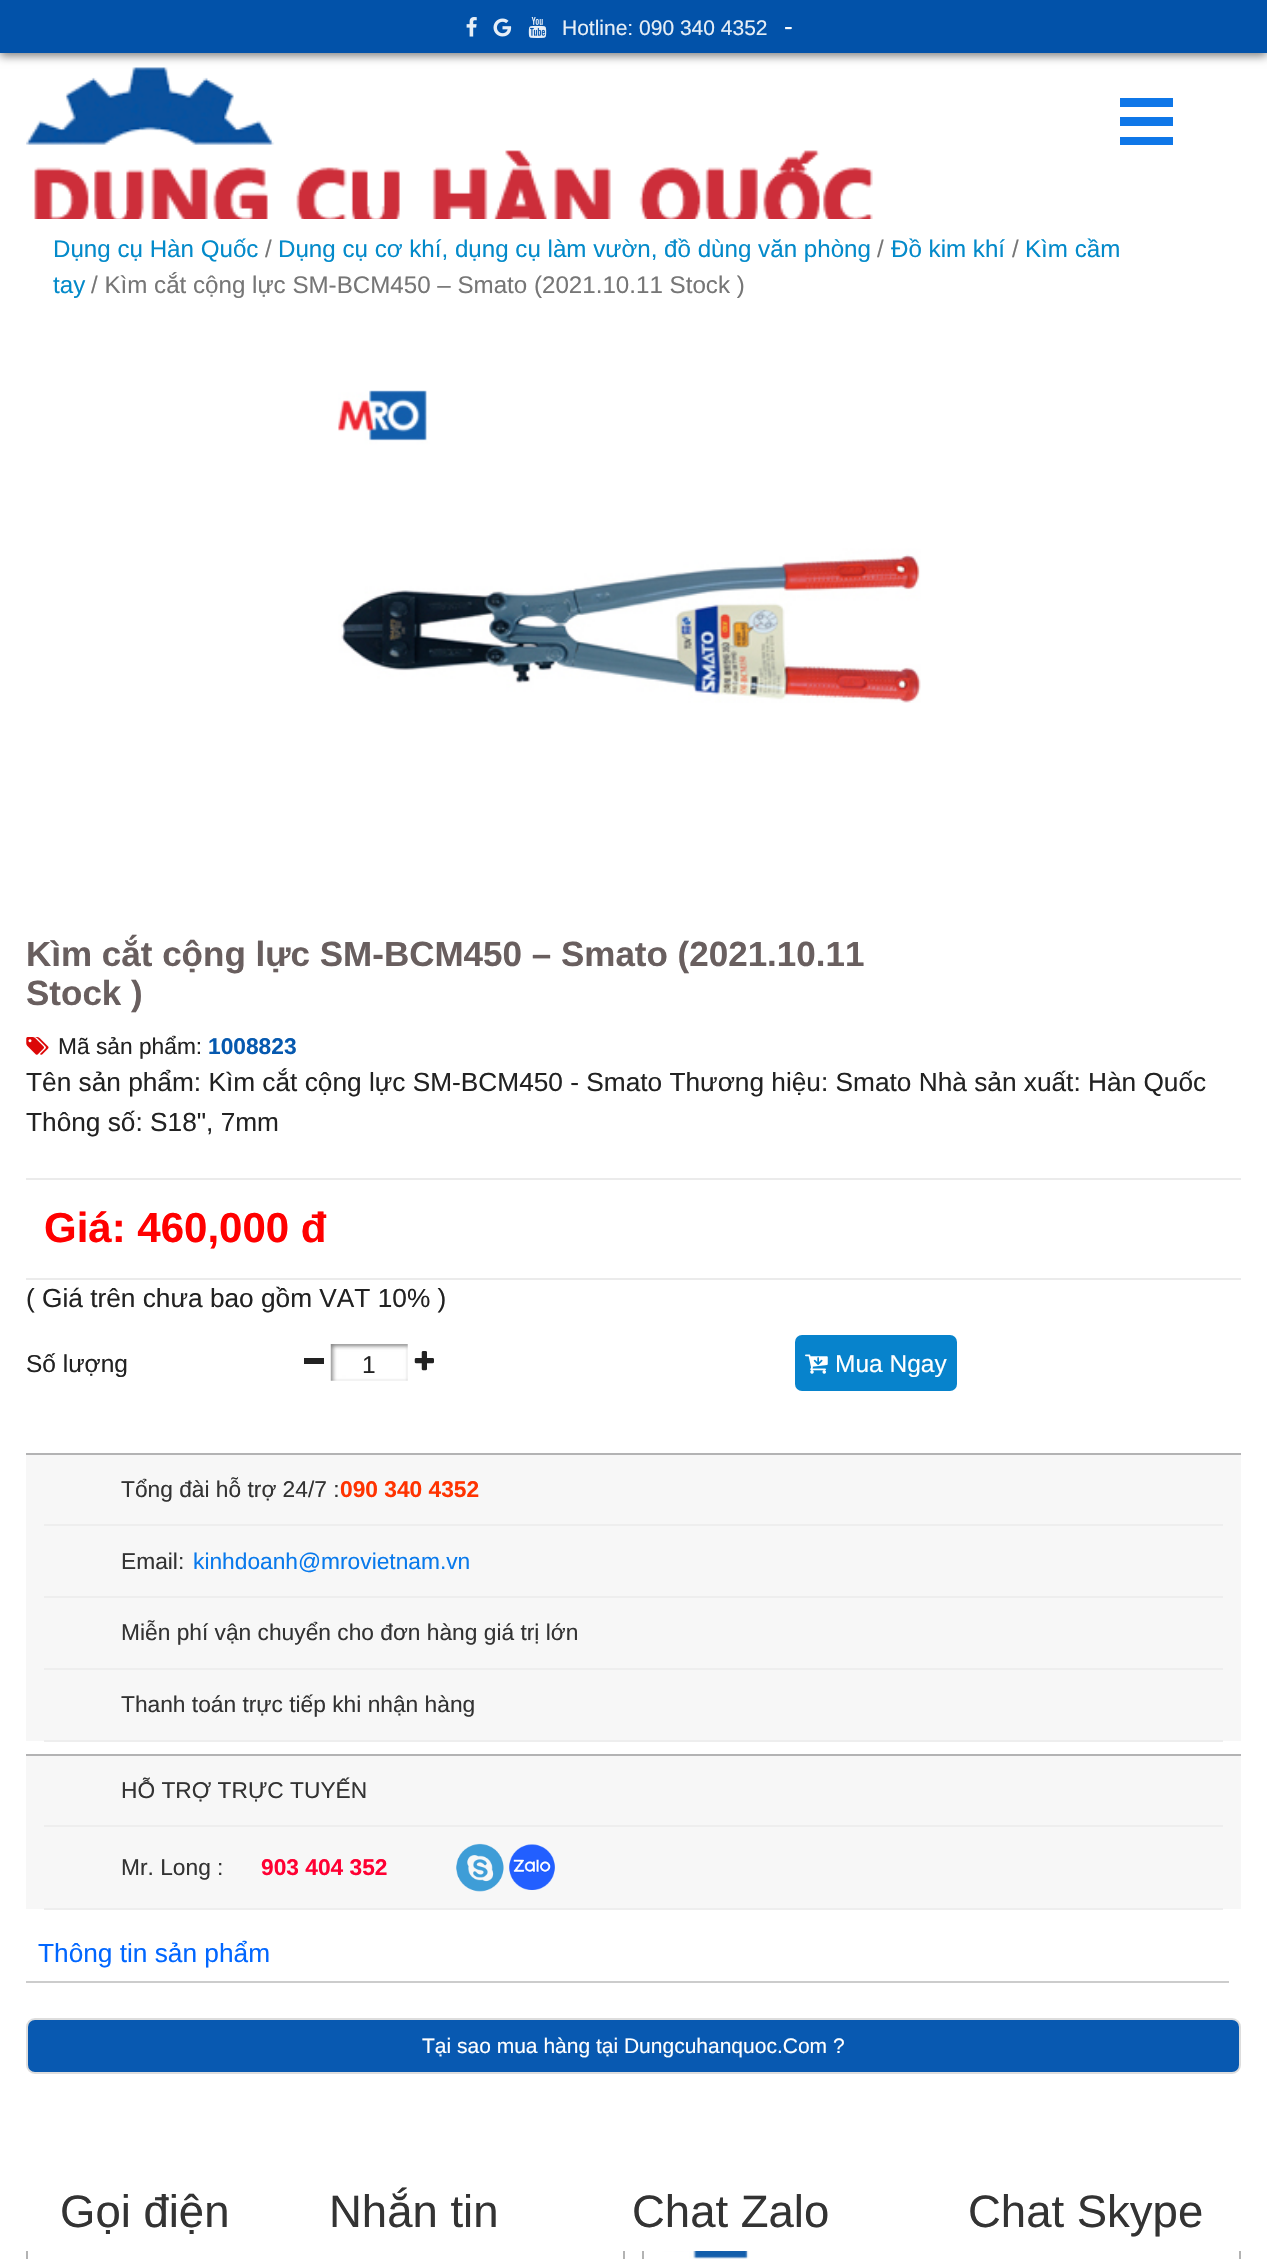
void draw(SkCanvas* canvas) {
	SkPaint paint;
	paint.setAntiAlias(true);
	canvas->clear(0xffffffff);
	canvas->drawImageRect(SkImages::DeferredFromEncodedData(SkData::MakeFromFileName("img12.png")), SkRect::MakeXYWH(26, 67, 847, 152), SkSamplingOptions());
	paint.setColor(0x80000000);
	paint.setMaskFilter(SkMaskFilter::MakeBlur(kNormal_SkBlurStyle, 4.5));
	canvas->drawRect(SkRect::MakeXYWH(0, 4, 1267, 52), paint);
	paint.setMaskFilter(nullptr);
	paint.setColor(0xff0252a9);
	canvas->drawRect(SkRect::MakeXYWH(0, 0, 1267, 53), paint);
	canvas->drawImageRect(SkImages::DeferredFromEncodedData(SkData::MakeFromFileName("img1.png")), SkRect::MakeXYWH(466, 17, 11, 20), SkSamplingOptions());
	canvas->drawImageRect(SkImages::DeferredFromEncodedData(SkData::MakeFromFileName("img2.png")), SkRect::MakeXYWH(493, 18, 19, 19), SkSamplingOptions());
	canvas->drawImageRect(SkImages::DeferredFromEncodedData(SkData::MakeFromFileName("img3.png")), SkRect::MakeXYWH(528, 17, 19, 21), SkSamplingOptions());
	SkFont f1(fontMgr->matchFamilyStyle("Liberation Sans", SkFontStyle::Normal()), 21);
	f1.setSubpixel(true);
	paint.setColor(0xffe6eef6);
	canvas->drawString("Hotline: 090 340 4352", 562, 35, f1, paint);
	SkFont f2(fontMgr->matchFamilyStyle("Liberation Sans", SkFontStyle::Normal()), 26.25);
	f2.setSubpixel(true);
	paint.setColor(0xffffffff);
	canvas->drawString("-", 784, 35, f2, paint);
	SkFont f3(fontMgr->matchFamilyStyle("Liberation Sans", SkFontStyle::Normal()), 24.15);
	f3.setSubpixel(true);
	paint.setColor(0xff038aca);
	canvas->drawString("Dụng cụ Hàn Quốc", 53, 257, f3, paint);
	paint.setColor(0xff767676);
	canvas->drawString("/", 265, 257, f3, paint);
	paint.setColor(0xff038aca);
	canvas->drawString("Dụng cụ cơ khí, dụng cụ làm vườn, đồ dùng văn phòng", 278, 257, f3, paint);
	paint.setColor(0xff767676);
	canvas->drawString("/", 877, 257, f3, paint);
	paint.setColor(0xff038aca);
	canvas->drawString("Đồ kim khí", 891, 257, f3, paint);
	paint.setColor(0xff767676);
	canvas->drawString("/", 1012, 257, f3, paint);
	paint.setColor(0xff038aca);
	canvas->drawString("Kìm cầm", 1025, 257, f3, paint);
	canvas->drawString("tay", 53, 293, f3, paint);
	paint.setColor(0xff767676);
	canvas->drawString("/ Kìm cắt cộng lực SM-BCM450 – Smato (2021.10.11 Stock )", 91, 293, f3, paint);
	canvas->drawImageRect(SkImages::DeferredFromEncodedData(SkData::MakeFromFileName("img4.png")), SkRect::MakeXYWH(338, 390, 583, 313), SkSamplingOptions());
	SkFont f4(fontMgr->matchFamilyStyle("Liberation Sans", SkFontStyle::Bold()), 35);
	f4.setSubpixel(true);
	paint.setColor(0xff695f5f);
	canvas->drawString("Kìm cắt cộng lực SM-BCM450 – Smato (2021.10.11", 26, 966, f4, paint);
	canvas->drawString("Stock )", 26, 1005, f4, paint);
	canvas->drawImageRect(SkImages::DeferredFromEncodedData(SkData::MakeFromFileName("img5.png")), SkRect::MakeXYWH(26, 1037, 23, 18), SkSamplingOptions());
	SkFont f5(fontMgr->matchFamilyStyle("Liberation Sans", SkFontStyle::Normal()), 22.75);
	f5.setSubpixel(true);
	paint.setColor(0xff222222);
	canvas->drawString("Mã sản phẩm:", 58, 1054, f5, paint);
	SkFont f6(fontMgr->matchFamilyStyle("Liberation Sans", SkFontStyle::Bold()), 22.75);
	f6.setSubpixel(true);
	paint.setColor(0xff0659af);
	canvas->drawString("1008823", 208, 1054, f6, paint);
	paint.setColor(0xff222222);
	canvas->drawString("Tên sản phẩm: Kìm cắt cộng lực SM-BCM450 - Smato Thương hiệu: Smato Nhà sản xuất: Hàn Quốc", 26, 1091, f2, paint);
	canvas->drawString("Thông số: S18\", 7mm", 26, 1131, f2, paint);
	paint.setColor(0xffebebeb);
	canvas->drawRect(SkRect::MakeXYWH(26, 1178, 1215, 2), paint);
	canvas->drawRect(SkRect::MakeXYWH(26, 1278, 1215, 2), paint);
	SkFont f7(fontMgr->matchFamilyStyle("Liberation Sans", SkFontStyle::Bold()), 42);
	f7.setSubpixel(true);
	paint.setColor(0xffff0000);
	canvas->drawString("Giá: 460,000 đ", 44, 1242, f7, paint);
	paint.setColor(0xff222222);
	canvas->drawString("( Giá trên chưa bao gồm VAT 10% )", 26, 1307, f2, paint);
	SkFont f8(fontMgr->matchFamilyStyle("Liberation Sans", SkFontStyle::Normal()), 24.5);
	f8.setSubpixel(true);
	canvas->drawString("Số lượng", 26, 1372, f8, paint);
	canvas->drawRect(SkRect::MakeXYWH(304, 1358, 20, 6), paint);
	canvas->drawImageRect(SkImages::DeferredFromEncodedData(SkData::MakeFromFileName("img6.png")), SkRect::MakeXYWH(330, 1344, 78, 37), SkSamplingOptions());
	canvas->drawString("1", 362, 1373, f8, paint);
	canvas->drawImageRect(SkImages::DeferredFromEncodedData(SkData::MakeFromFileName("img7.png")), SkRect::MakeXYWH(414, 1351, 20, 20), SkSamplingOptions());
	paint.setColor(0xff0783cc);
	canvas->drawRoundRect(SkRect::MakeXYWH(795, 1335, 162, 56), 7, 7, paint);
	canvas->drawImageRect(SkImages::DeferredFromEncodedData(SkData::MakeFromFileName("img8.png")), SkRect::MakeXYWH(805, 1354, 23, 20), SkSamplingOptions());
	paint.setColor(0xffffffff);
	canvas->drawString("Mua Ngay", 835, 1372, f8, paint);
	paint.setColor(0xfff7f7f7);
	canvas->drawRect(SkRect::MakeXYWH(26, 1455, 1215, 286), paint);
	paint.setColor(0xffb3b3b4);
	canvas->drawRect(SkRect::MakeXYWH(26, 1453, 1215, 2), paint);
	paint.setColor(0xffeeeeee);
	canvas->drawRect(SkRect::MakeXYWH(44, 1524, 1179, 2), paint);
	paint.setColor(0xff333333);
	canvas->drawString("Tổng đài hỗ trợ 24/7 :", 121, 1497, f5, paint);
	paint.setColor(0xffff3300);
	canvas->drawString("090 340 4352", 340, 1497, f6, paint);
	paint.setColor(0xffeeeeee);
	canvas->drawRect(SkRect::MakeXYWH(44, 1596, 1179, 2), paint);
	paint.setColor(0xff333333);
	canvas->drawString("Email:", 121, 1569, f5, paint);
	paint.setColor(0xff0879ec);
	canvas->drawString("kinhdoanh@mrovietnam.vn", 193, 1569, f5, paint);
	paint.setColor(0xffeeeeee);
	canvas->drawRect(SkRect::MakeXYWH(44, 1668, 1179, 2), paint);
	paint.setColor(0xff333333);
	canvas->drawString("Miễn phí vận chuyển cho đơn hàng giá trị lớn", 121, 1640, f5, paint);
	paint.setColor(0xffeeeeee);
	canvas->drawRect(SkRect::MakeXYWH(44, 1740, 1179, 2), paint);
	paint.setColor(0xff333333);
	canvas->drawString("Thanh toán trực tiếp khi nhận hàng", 121, 1712, f5, paint);
	paint.setColor(0xfff7f7f7);
	canvas->drawRect(SkRect::MakeXYWH(26, 1756, 1215, 153), paint);
	paint.setColor(0xffb3b3b4);
	canvas->drawRect(SkRect::MakeXYWH(26, 1754, 1215, 2), paint);
	paint.setColor(0xffeeeeee);
	canvas->drawRect(SkRect::MakeXYWH(44, 1825, 1179, 2), paint);
	paint.setColor(0xff333333);
	canvas->drawString("HỖ TRỢ TRỰC TUYẾN", 121, 1798, f5, paint);
	paint.setColor(0xffeeeeee);
	canvas->drawRect(SkRect::MakeXYWH(44, 1908, 1179, 2), paint);
	paint.setColor(0xff333333);
	canvas->drawString("Mr. Long :", 121, 1875, f5, paint);
	paint.setColor(0xffff0033);
	canvas->drawString("903 404 352", 261, 1875, f6, paint);
	canvas->drawImageRect(SkImages::DeferredFromEncodedData(SkData::MakeFromFileName("img9.png")), SkRect::MakeXYWH(456, 1843, 48, 49), SkSamplingOptions());
	canvas->drawImageRect(SkImages::DeferredFromEncodedData(SkData::MakeFromFileName("img10.png")), SkRect::MakeXYWH(509, 1844, 46, 46), SkSamplingOptions());
	paint.setColor(0xffcccccc);
	canvas->drawRect(SkRect::MakeXYWH(26, 1981, 1203, 2), paint);
	paint.setColor(0xff0066ff);
	canvas->drawString("Thông tin sản phẩm", 38, 1962, f2, paint);
	paint.setColor(0xff0859b1);
	canvas->drawRoundRect(SkRect::MakeXYWH(27, 2019, 1213, 54), 8, 8, paint);
	paint.setStroke(true);
	paint.setStrokeWidth(2);
	paint.setColor(0xffdddddd);
	canvas->drawRoundRect(SkRect::MakeXYWH(27, 2019, 1213, 54), 8, 8, paint);
	paint.setStroke(false);
	paint.setColor(0xffffffff);
	canvas->drawString("Tại sao mua hàng tại Dungcuhanquoc.Com ?", 422, 2053, f1, paint);
	paint.setStroke(true);
	paint.setColor(0xffb3b3b3);
	canvas->drawRect(SkRect::MakeXYWH(27, 2192, 597, 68), paint);
	canvas->drawRect(SkRect::MakeXYWH(643, 2192, 597, 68), paint);
	canvas->drawImageRect(SkImages::DeferredFromEncodedData(SkData::MakeFromFileName("img11.png")), SkRect::MakeXYWH(664, 2251, 85, 8), SkSamplingOptions());
	paint.setStroke(false);
	paint.setColor(0xffffffff);
	canvas->drawRect(SkRect::MakeXYWH(26, 2191, 1215, 60), paint);
	SkFont f9(fontMgr->matchFamilyStyle("Liberation Sans", SkFontStyle::Normal()), 45.5);
	f9.setSubpixel(true);
	paint.setColor(0xff333333);
	canvas->drawString("Gọi điện", 60, 2227, f9, paint);
	canvas->drawString("Nhắn tin", 329, 2227, f9, paint);
	canvas->drawString("Chat Zalo", 632, 2227, f9, paint);
	canvas->drawString("Chat Skype", 968, 2227, f9, paint);
	paint.setColor(0xff0f77e8);
	canvas->drawRect(SkRect::MakeXYWH(1120, 98, 53, 9), paint);
	canvas->drawRect(SkRect::MakeXYWH(1120, 117, 53, 9), paint);
	canvas->drawRect(SkRect::MakeXYWH(1120, 137, 53, 8), paint);
}
